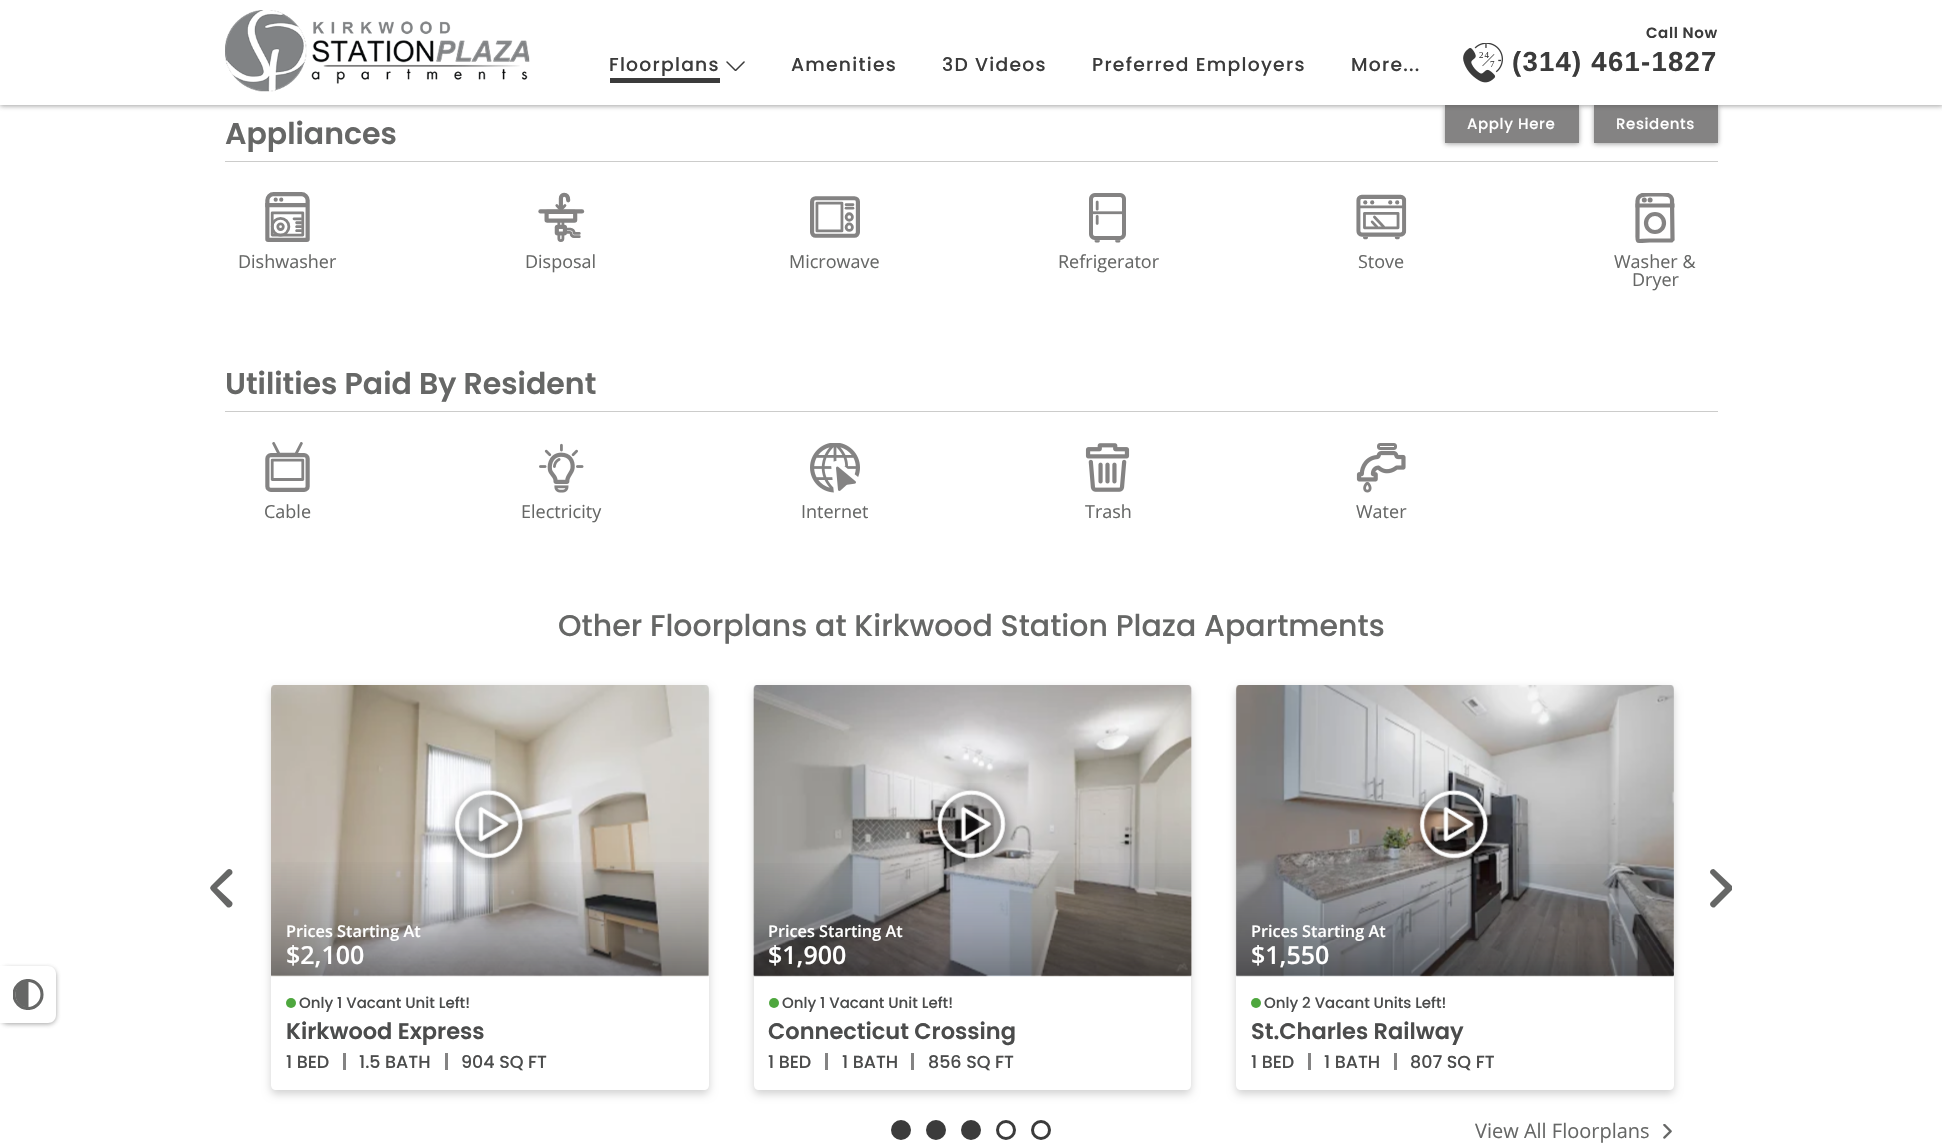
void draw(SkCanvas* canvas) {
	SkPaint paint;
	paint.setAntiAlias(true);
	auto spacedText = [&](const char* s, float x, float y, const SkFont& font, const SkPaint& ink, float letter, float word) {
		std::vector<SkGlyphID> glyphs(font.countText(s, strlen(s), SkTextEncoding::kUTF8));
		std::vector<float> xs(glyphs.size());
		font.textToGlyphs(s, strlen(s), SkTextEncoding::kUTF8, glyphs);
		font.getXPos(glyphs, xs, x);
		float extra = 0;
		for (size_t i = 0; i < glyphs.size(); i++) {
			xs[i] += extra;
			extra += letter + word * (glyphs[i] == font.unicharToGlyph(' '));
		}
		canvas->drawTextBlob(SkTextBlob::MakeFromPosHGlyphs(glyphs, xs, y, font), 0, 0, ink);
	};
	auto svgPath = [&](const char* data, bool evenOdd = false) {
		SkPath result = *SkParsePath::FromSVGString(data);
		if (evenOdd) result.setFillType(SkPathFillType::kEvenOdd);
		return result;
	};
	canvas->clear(0xffffffff);
	paint.setColor(0x80444444);
	paint.setMaskFilter(SkMaskFilter::MakeBlur(kNormal_SkBlurStyle, 2.5));
	canvas->drawRect(SkRect::MakeXYWH(1445, 106, 134, 38), paint);
	paint.setMaskFilter(nullptr);
	paint.setColor(0xff848383);
	canvas->drawRect(SkRect::MakeXYWH(1445, 105, 134, 38), paint);
	paint.setColor(0x80444444);
	paint.setMaskFilter(SkMaskFilter::MakeBlur(kNormal_SkBlurStyle, 2.5));
	canvas->drawRect(SkRect::MakeXYWH(1594, 106, 124, 38), paint);
	paint.setMaskFilter(nullptr);
	paint.setColor(0xff848383);
	canvas->drawRect(SkRect::MakeXYWH(1594, 105, 124, 38), paint);
	paint.setColor(0x80444444);
	paint.setMaskFilter(SkMaskFilter::MakeBlur(kNormal_SkBlurStyle, 2.5));
	canvas->drawRect(SkRect::MakeXYWH(0, 1, 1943, 105), paint);
	paint.setMaskFilter(nullptr);
	paint.setColor(0xffffffff);
	canvas->drawRect(SkRect::MakeXYWH(0, 0, 1942, 105), paint);
	canvas->drawImageRect(SkImages::DeferredFromEncodedData(SkData::MakeFromFileName("img1.png")), SkRect::MakeXYWH(225, 10, 305, 82), SkSamplingOptions());
	SkFont f1(fontMgr->matchFamilyStyle("Poppins", SkFontStyle(500, SkFontStyle::kNormal_Width, SkFontStyle::kUpright_Slant)), 18.75);
	f1.setSubpixel(true);
	paint.setColor(0xff3b3b3b);
	spacedText("Floorplans", 609, 71, f1, paint, 1.25, 0);
	canvas->drawRect(SkRect::MakeXYWH(610, 78, 110, 5), paint);
	canvas->drawImageRect(SkImages::DeferredFromEncodedData(SkData::MakeFromFileName("img2.png")), SkRect::MakeXYWH(726, 61, 19, 10), SkSamplingOptions());
	spacedText("Amenities", 791, 71, f1, paint, 1.25, 0);
	spacedText("3D Videos", 942, 71, f1, paint, 1.25, 0);
	spacedText("Preferred Employers", 1092, 71, f1, paint, 1.25, 0);
	spacedText("More...", 1351, 71, f1, paint, 1.25, 0);
	SkFont f2(fontMgr->matchFamilyStyle("Poppins", SkFontStyle(600, SkFontStyle::kNormal_Width, SkFontStyle::kUpright_Slant)), 15);
	f2.setSubpixel(true);
	spacedText("Call Now", 1646, 38, f2, paint, 0.6, 0);
	canvas->drawImageRect(SkImages::DeferredFromEncodedData(SkData::MakeFromFileName("img3.png")), SkRect::MakeXYWH(1463, 43, 40, 40), SkSamplingOptions());
	SkFont f3(fontMgr->matchFamilyStyle("Liberation Serif", SkFontStyle::Normal()), 9);
	f3.setSubpixel(true);
	spacedText("24", 1479, 58, f3, paint, 1, 0);
	spacedText("7", 1490, 67, f3, paint, 1, 0);
	SkFont f4(fontMgr->matchFamilyStyle("Liberation Sans", SkFontStyle::Bold()), 27.5);
	f4.setSubpixel(true);
	spacedText("(314) 461-1827", 1512, 71, f4, paint, 1.25, 0);
	SkFont f5(fontMgr->matchFamilyStyle("Poppins", SkFontStyle(500, SkFontStyle::kNormal_Width, SkFontStyle::kUpright_Slant)), 15);
	f5.setSubpixel(true);
	paint.setColor(0xffffffff);
	spacedText("Apply Here", 1467, 129, f5, paint, 0.6, 0);
	spacedText("Residents", 1616, 129, f5, paint, 0.6, 0);
	paint.setColor(0x80444444);
	paint.setMaskFilter(SkMaskFilter::MakeBlur(kNormal_SkBlurStyle, 2.5));
	canvas->drawRoundRect(SkRect::MakeXYWH(0, 968, 56, 56), 8, 8, paint);
	paint.setMaskFilter(nullptr);
	paint.setColor(0xffffffff);
	canvas->drawPath(svgPath("M0 966H48C52.5 966 56 969.5 56 974V1015C56 1019.5 52.5 1023 48 1023H0Z"), paint);
	canvas->save();
	canvas->clipRect(SkRect::MakeXYWH(13, 979, 31, 31));
	paint.setStroke(true);
	paint.setStrokeWidth(3.1);
	paint.setColor(0xff666766);
	canvas->drawCircle(28, 994.5, 14, paint);
	canvas->restore();
	paint.setStroke(false);
	canvas->drawPath(svgPath("M28.5 981C11 981 11 1007.5 28.5 1007.5Z"), paint);
	paint.setColor(0xffcccccb);
	canvas->drawRect(SkRect::MakeXYWH(225, 161, 1493, 1), paint);
	SkFont f6(fontMgr->matchFamilyStyle("Poppins", SkFontStyle(600, SkFontStyle::kNormal_Width, SkFontStyle::kUpright_Slant)), 30);
	f6.setSubpixel(true);
	paint.setColor(0xff666766);
	canvas->drawString("Appliances", 225, 144, f6, paint);
	canvas->drawImageRect(SkImages::DeferredFromEncodedData(SkData::MakeFromFileName("img4.png")), SkRect::MakeXYWH(265, 192, 45, 50), SkSamplingOptions());
	SkFont f7(fontMgr->matchFamilyStyle("Open Sans", SkFontStyle::Normal()), 18);
	f7.setSubpixel(true);
	canvas->drawString("Dishwasher", 238, 268, f7, paint);
	canvas->drawImageRect(SkImages::DeferredFromEncodedData(SkData::MakeFromFileName("img5.png")), SkRect::MakeXYWH(538, 192, 47, 50), SkSamplingOptions());
	canvas->drawString("Disposal", 525, 268, f7, paint);
	canvas->drawImageRect(SkImages::DeferredFromEncodedData(SkData::MakeFromFileName("img6.png")), SkRect::MakeXYWH(810, 196, 50, 42), SkSamplingOptions());
	canvas->drawString("Microwave", 789, 268, f7, paint);
	canvas->drawImageRect(SkImages::DeferredFromEncodedData(SkData::MakeFromFileName("img7.png")), SkRect::MakeXYWH(1089, 193, 37, 50), SkSamplingOptions());
	canvas->drawString("Refrigerator", 1058, 268, f7, paint);
	canvas->drawImageRect(SkImages::DeferredFromEncodedData(SkData::MakeFromFileName("img8.png")), SkRect::MakeXYWH(1356, 194, 51, 46), SkSamplingOptions());
	canvas->drawString("Stove", 1358, 268, f7, paint);
	canvas->save();
	canvas->clipRect(SkRect::MakeXYWH(1630, 193, 50, 50));
	paint.setStroke(true);
	paint.setStrokeWidth(4.2);
	paint.setColor(0xff848383);
	canvas->drawPath(svgPath("M1637.5 201C1637.5 193.5 1646.5 194.5 1651.5 194.5H1662.5C1666.5 194.5 1671 194.5 1672 199.5L1672.5 239.5L1671.5 240.5H1649.5C1636 240.5 1637.5 244 1637.5 233Z"), paint);
	canvas->restore();
	paint.setStroke(false);
	canvas->drawCircle(1644.3, 200.1, 2.5, paint);
	canvas->drawCircle(1650.1, 200.1, 2.5, paint);
	paint.setStroke(true);
	canvas->drawPath(svgPath("M1635.5 205.5H1674.5"), paint);
	canvas->drawCircle(1655, 223, 9, paint);
	paint.setStroke(false);
	paint.setColor(0xff666766);
	canvas->drawString("Washer &", 1614, 268, f7, paint);
	canvas->drawString("Dryer", 1632, 286, f7, paint);
	paint.setColor(0xffcccccb);
	canvas->drawRect(SkRect::MakeXYWH(225, 411, 1493, 1), paint);
	paint.setColor(0xff666766);
	canvas->drawString("Utilities Paid By Resident", 225, 394, f6, paint);
	canvas->drawImageRect(SkImages::DeferredFromEncodedData(SkData::MakeFromFileName("img9.png")), SkRect::MakeXYWH(265, 442, 45, 50), SkSamplingOptions());
	canvas->drawString("Cable", 264, 518, f7, paint);
	canvas->drawImageRect(SkImages::DeferredFromEncodedData(SkData::MakeFromFileName("img10.png")), SkRect::MakeXYWH(539, 443, 45, 50), SkSamplingOptions());
	canvas->drawString("Electricity", 521, 518, f7, paint);
	canvas->drawImageRect(SkImages::DeferredFromEncodedData(SkData::MakeFromFileName("img11.png")), SkRect::MakeXYWH(810, 443, 50, 50), SkSamplingOptions());
	canvas->drawString("Internet", 801, 518, f7, paint);
	canvas->drawImageRect(SkImages::DeferredFromEncodedData(SkData::MakeFromFileName("img12.png")), SkRect::MakeXYWH(1085, 443, 45, 49), SkSamplingOptions());
	canvas->drawString("Trash", 1085, 518, f7, paint);
	canvas->drawImageRect(SkImages::DeferredFromEncodedData(SkData::MakeFromFileName("img13.png")), SkRect::MakeXYWH(1356, 443, 50, 50), SkSamplingOptions());
	canvas->drawString("Water", 1356, 518, f7, paint);
	SkFont f8(fontMgr->matchFamilyStyle("Poppins", SkFontStyle(500, SkFontStyle::kNormal_Width, SkFontStyle::kUpright_Slant)), 30);
	f8.setSubpixel(true);
	canvas->drawString("Other Floorplans at Kirkwood Station Plaza Apartments", 558, 636, f8, paint);
	canvas->drawPath(svgPath("M217 888L232 874C234 871 230 867 227 870L211 886L210 888L211 890L227 907C230 909 234 905 232 902Z"), paint);
	canvas->drawPath(svgPath("M1725 888L1711 902C1708 905 1713 909 1715 907L1732 890V888V886L1715 870C1713 867 1708 871 1711 874Z"), paint);
	paint.setColor(0x2e000000);
	paint.setMaskFilter(SkMaskFilter::MakeBlur(kNormal_SkBlurStyle, 4));
	canvas->drawRoundRect(SkRect::MakeXYWH(271, 689, 438, 405), 5, 5, paint);
	paint.setMaskFilter(nullptr);
	paint.setColor(0xffffffff);
	canvas->drawPath(svgPath("M271 976H709V1085C709 1088 707 1090 704 1090H276C273 1090 271 1088 271 1085Z"), paint);
	canvas->drawImageRect(SkImages::DeferredFromEncodedData(SkData::MakeFromFileName("img14.png")), SkRect::MakeXYWH(271, 685, 438, 292), SkSamplingOptions());
	canvas->drawImageRect(SkImages::DeferredFromEncodedData(SkData::MakeFromFileName("img15.png")), SkRect::MakeXYWH(271, 685, 438, 292), SkSamplingOptions());
	canvas->drawImageRect(SkImages::DeferredFromEncodedData(SkData::MakeFromFileName("img17.png")), SkRect::MakeXYWH(271, 862, 438, 115), SkSamplingOptions());
	canvas->drawImageRect(SkImages::DeferredFromEncodedData(SkData::MakeFromFileName("img16.png")), SkRect::MakeXYWH(444, 783, 90, 91), SkSamplingOptions());
	SkFont f9(fontMgr->matchFamilyStyle("Open Sans", SkFontStyle(600, SkFontStyle::kNormal_Width, SkFontStyle::kUpright_Slant)), 16.25);
	f9.setSubpixel(true);
	canvas->drawString("Prices Starting At", 286, 937, f9, paint);
	SkFont f10(fontMgr->matchFamilyStyle("Open Sans", SkFontStyle(600, SkFontStyle::kNormal_Width, SkFontStyle::kUpright_Slant)), 25);
	f10.setSubpixel(true);
	canvas->drawString("$2,100", 286, 964, f10, paint);
	paint.setColor(0xff4ea73e);
	canvas->drawCircle(291, 1003, 5, paint);
	paint.setColor(0xff4b4c4c);
	canvas->drawString("Only 1 Vacant Unit Left!", 299, 1008, f5, paint);
	SkFont f11(fontMgr->matchFamilyStyle("Poppins", SkFontStyle(600, SkFontStyle::kNormal_Width, SkFontStyle::kUpright_Slant)), 22.5);
	f11.setSubpixel(true);
	canvas->drawString("Kirkwood Express", 286, 1039, f11, paint);
	SkFont f12(fontMgr->matchFamilyStyle("Poppins", SkFontStyle(500, SkFontStyle::kNormal_Width, SkFontStyle::kUpright_Slant)), 17.5);
	f12.setSubpixel(true);
	canvas->drawString("1 BED", 286, 1068, f12, paint);
	paint.setColor(0xff848383);
	canvas->drawRect(SkRect::MakeXYWH(343, 1053, 3, 17), paint);
	paint.setColor(0xff4b4c4c);
	canvas->drawString("1.5 BATH", 359, 1068, f12, paint);
	paint.setColor(0xff848383);
	canvas->drawRect(SkRect::MakeXYWH(445, 1053, 3, 17), paint);
	paint.setColor(0xff4b4c4c);
	canvas->drawString("904 SQ FT", 461, 1068, f12, paint);
	paint.setColor(0x2e000000);
	paint.setMaskFilter(SkMaskFilter::MakeBlur(kNormal_SkBlurStyle, 4));
	canvas->drawRoundRect(SkRect::MakeXYWH(754, 689, 437, 405), 5, 5, paint);
	paint.setMaskFilter(nullptr);
	paint.setColor(0xffffffff);
	canvas->drawPath(svgPath("M754 976H1191V1085C1191 1088 1189 1090 1186 1090H759C756 1090 754 1088 754 1085Z"), paint);
	canvas->drawImageRect(SkImages::DeferredFromEncodedData(SkData::MakeFromFileName("img18.png")), SkRect::MakeXYWH(753, 685, 439, 292), SkSamplingOptions());
	canvas->drawImageRect(SkImages::DeferredFromEncodedData(SkData::MakeFromFileName("img19.png")), SkRect::MakeXYWH(753, 685, 439, 292), SkSamplingOptions());
	canvas->drawImageRect(SkImages::DeferredFromEncodedData(SkData::MakeFromFileName("img21.png")), SkRect::MakeXYWH(753, 863, 439, 114), SkSamplingOptions());
	canvas->drawImageRect(SkImages::DeferredFromEncodedData(SkData::MakeFromFileName("img20.png")), SkRect::MakeXYWH(926, 783, 91, 91), SkSamplingOptions());
	canvas->drawString("Prices Starting At", 768, 937, f9, paint);
	canvas->drawString("$1,900", 768, 964, f10, paint);
	paint.setColor(0xff4ea73e);
	canvas->drawCircle(774, 1003, 5, paint);
	paint.setColor(0xff4b4c4c);
	canvas->drawString("Only 1 Vacant Unit Left!", 782, 1008, f5, paint);
	canvas->drawString("Connecticut Crossing", 768, 1039, f11, paint);
	canvas->drawString("1 BED", 768, 1068, f12, paint);
	paint.setColor(0xff848383);
	canvas->drawRect(SkRect::MakeXYWH(825, 1053, 3, 17), paint);
	paint.setColor(0xff4b4c4c);
	canvas->drawString("1 BATH", 842, 1068, f12, paint);
	paint.setColor(0xff848383);
	canvas->drawRect(SkRect::MakeXYWH(911, 1053, 3, 17), paint);
	paint.setColor(0xff4b4c4c);
	canvas->drawString("856 SQ FT", 928, 1068, f12, paint);
	paint.setColor(0x2e000000);
	paint.setMaskFilter(SkMaskFilter::MakeBlur(kNormal_SkBlurStyle, 4));
	canvas->drawRoundRect(SkRect::MakeXYWH(1236, 689, 438, 405), 5, 5, paint);
	paint.setMaskFilter(nullptr);
	paint.setColor(0xffffffff);
	canvas->drawPath(svgPath("M1236 976H1674V1085C1674 1088 1672 1090 1669 1090H1241C1238 1090 1236 1088 1236 1085Z"), paint);
	canvas->drawImageRect(SkImages::DeferredFromEncodedData(SkData::MakeFromFileName("img22.png")), SkRect::MakeXYWH(1236, 685, 438, 292), SkSamplingOptions());
	canvas->drawImageRect(SkImages::DeferredFromEncodedData(SkData::MakeFromFileName("img23.png")), SkRect::MakeXYWH(1235, 685, 439, 292), SkSamplingOptions());
	canvas->drawImageRect(SkImages::DeferredFromEncodedData(SkData::MakeFromFileName("img25.png")), SkRect::MakeXYWH(1236, 864, 438, 113), SkSamplingOptions());
	canvas->drawImageRect(SkImages::DeferredFromEncodedData(SkData::MakeFromFileName("img24.png")), SkRect::MakeXYWH(1409, 783, 87, 91), SkSamplingOptions());
	canvas->drawString("Prices Starting At", 1251, 937, f9, paint);
	canvas->drawString("$1,550", 1251, 964, f10, paint);
	paint.setColor(0xff4ea73e);
	canvas->drawCircle(1256, 1003, 5, paint);
	paint.setColor(0xff4b4c4c);
	canvas->drawString("Only 2 Vacant Units Left!", 1264, 1008, f5, paint);
	canvas->drawString("St.Charles Railway", 1251, 1039, f11, paint);
	canvas->drawString("1 BED", 1251, 1068, f12, paint);
	paint.setColor(0xff848383);
	canvas->drawRect(SkRect::MakeXYWH(1308, 1053, 3, 17), paint);
	paint.setColor(0xff4b4c4c);
	canvas->drawString("1 BATH", 1324, 1068, f12, paint);
	paint.setColor(0xff848383);
	canvas->drawRect(SkRect::MakeXYWH(1394, 1053, 3, 17), paint);
	paint.setColor(0xff4b4c4c);
	canvas->drawString("807 SQ FT", 1410, 1068, f12, paint);
	paint.setColor(0xff3b3b3b);
	canvas->drawCircle(901, 1130, 8.5, paint);
	paint.setStroke(true);
	paint.setStrokeWidth(3);
	canvas->drawCircle(901, 1130, 8.5, paint);
	paint.setStroke(false);
	canvas->drawCircle(936, 1130, 8.5, paint);
	paint.setStroke(true);
	canvas->drawCircle(936, 1130, 8.5, paint);
	paint.setStroke(false);
	canvas->drawCircle(971, 1130, 8.5, paint);
	paint.setStroke(true);
	canvas->drawCircle(971, 1130, 8.5, paint);
	canvas->drawCircle(1006, 1130, 8.5, paint);
	canvas->drawCircle(1041, 1130, 8.5, paint);
	SkFont f13(fontMgr->matchFamilyStyle("Open Sans", SkFontStyle::Normal()), 20);
	f13.setSubpixel(true);
	paint.setStroke(false);
	paint.setColor(0xff666766);
	canvas->drawString("View All Floorplans", 1475, 1138, f13, paint);
	canvas->drawImageRect(SkImages::DeferredFromEncodedData(SkData::MakeFromFileName("img26.png")), SkRect::MakeXYWH(1663, 1124, 9, 15), SkSamplingOptions());
}
